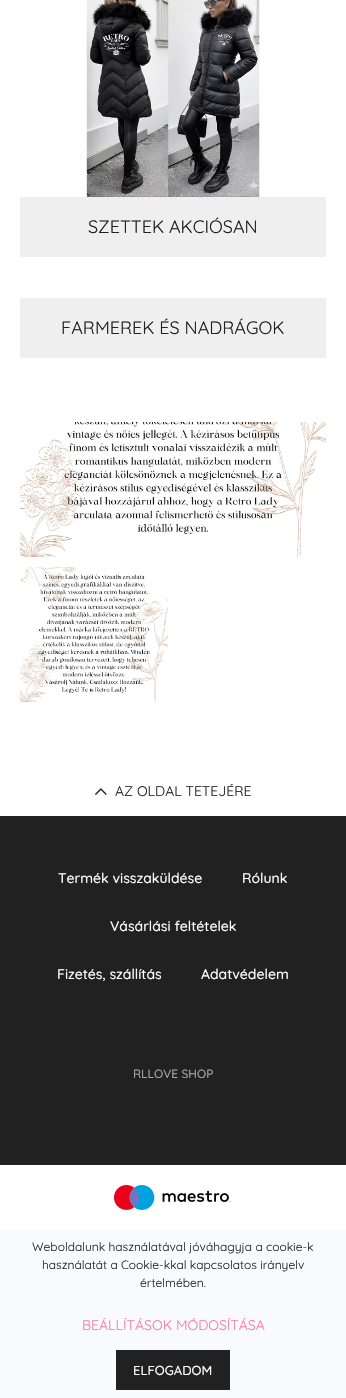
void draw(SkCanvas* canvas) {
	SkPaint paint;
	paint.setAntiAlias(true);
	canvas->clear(0xffffffff);
	canvas->drawImageRect(SkImages::DeferredFromEncodedData(SkData::MakeFromFileName("img1.png")), SkRect::MakeXYWH(86, 0, 174, 197), SkSamplingOptions());
	paint.setColor(0xffefefef);
	canvas->drawRect(SkRect::MakeXYWH(20, 197, 306, 60), paint);
	SkFont f1(fontMgr->matchFamilyStyle("Quicksand", SkFontStyle::Normal()), 18);
	f1.setSubpixel(true);
	paint.setColor(0xff212121);
	canvas->drawString("SZETTEK AKCIÓSAN", 88, 233, f1, paint);
	paint.setColor(0xffefefef);
	canvas->drawRect(SkRect::MakeXYWH(20, 298, 306, 60), paint);
	paint.setColor(0xff212121);
	canvas->drawString("FARMEREK ÉS NADRÁGOK", 61, 334, f1, paint);
	canvas->drawImageRect(SkImages::DeferredFromEncodedData(SkData::MakeFromFileName("img2.png")), SkRect::MakeXYWH(20, 422, 306, 135), SkSamplingOptions());
	canvas->drawImageRect(SkImages::DeferredFromEncodedData(SkData::MakeFromFileName("img3.png")), SkRect::MakeXYWH(20, 567, 148, 135), SkSamplingOptions());
	canvas->drawImageRect(SkImages::DeferredFromEncodedData(SkData::MakeFromFileName("img4.png")), SkRect::MakeXYWH(95, 788, 12, 7), SkSamplingOptions());
	SkFont f2(fontMgr->matchFamilyStyle("Quicksand", SkFontStyle::Normal()), 14);
	f2.setSubpixel(true);
	canvas->drawString("AZ OLDAL TETEJÉRE", 115, 796, f2, paint);
	canvas->drawRect(SkRect::MakeXYWH(0, 816, 346, 349), paint);
	SkFont f3(fontMgr->matchFamilyStyle("Quicksand", SkFontStyle(500, SkFontStyle::kNormal_Width, SkFontStyle::kUpright_Slant)), 14);
	f3.setSubpixel(true);
	paint.setColor(0xffffffff);
	canvas->drawString("Termék visszaküldése", 58, 883, f3, paint);
	canvas->drawString("Rólunk", 242, 883, f3, paint);
	canvas->drawString("Vásárlási feltételek", 110, 931, f3, paint);
	canvas->drawString("Fizetés, szállítás", 57, 979, f3, paint);
	canvas->drawString("Adatvédelem", 201, 979, f3, paint);
	SkFont f4(fontMgr->matchFamilyStyle("Quicksand", SkFontStyle(500, SkFontStyle::kNormal_Width, SkFontStyle::kUpright_Slant)), 12);
	f4.setSubpixel(true);
	paint.setColor(0xffa6a6a6);
	canvas->drawString("RLLOVE SHOP", 133, 1078, f4, paint);
	canvas->drawImageRect(SkImages::DeferredFromEncodedData(SkData::MakeFromFileName("img5.png")), SkRect::MakeXYWH(114, 1185, 117, 25), SkSamplingOptions());
	paint.setColor(0xfff9fafb);
	canvas->drawRect(SkRect::MakeXYWH(0, 1230, 346, 168), paint);
	SkFont f5(fontMgr->matchFamilyStyle("Quicksand", SkFontStyle::Normal()), 12);
	f5.setSubpixel(true);
	paint.setColor(0xff212529);
	canvas->drawString("Weboldalunk használatával jóváhagyja a cookie-k", 32, 1251, f5, paint);
	canvas->drawString("használatát a Cookie-kkal kapcsolatos irányelv", 42, 1269, f5, paint);
	canvas->drawString("értelmében.", 140, 1287, f5, paint);
	paint.setColor(0xfff67da1);
	canvas->drawString("BEÁLLÍTÁSOK MÓDOSÍTÁSA", 82, 1330, f2, paint);
	paint.setColor(0xff212121);
	canvas->drawRect(SkRect::MakeXYWH(116, 1350, 114, 40), paint);
	SkFont f6(fontMgr->matchFamilyStyle("Quicksand", SkFontStyle(500, SkFontStyle::kNormal_Width, SkFontStyle::kUpright_Slant)), 13);
	f6.setSubpixel(true);
	paint.setColor(0xffffffff);
	canvas->drawString("ELFOGADOM", 133, 1375, f6, paint);
}
